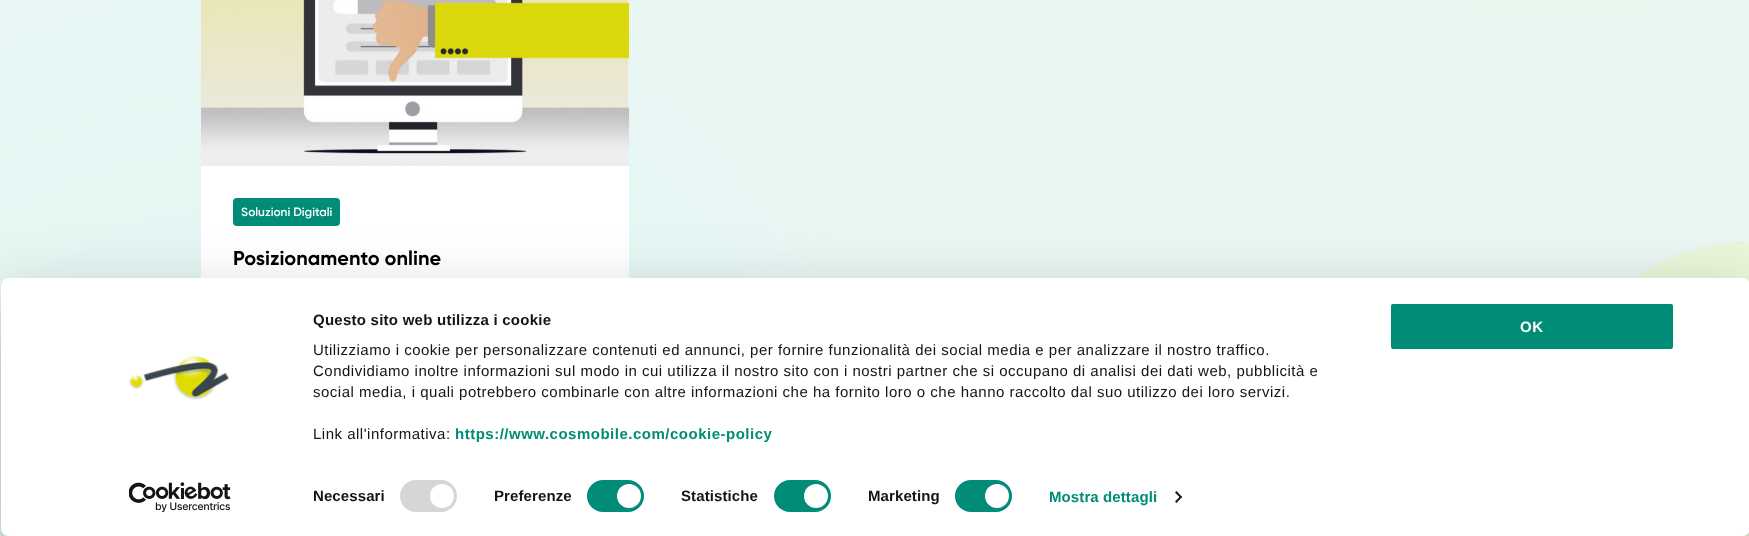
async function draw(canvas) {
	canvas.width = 1749;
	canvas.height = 536;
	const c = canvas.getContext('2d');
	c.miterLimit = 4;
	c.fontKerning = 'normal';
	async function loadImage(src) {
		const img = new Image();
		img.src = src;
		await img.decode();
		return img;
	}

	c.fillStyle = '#e9f6f4';
	c.fillRect(0, 0, 1749, 536);
	c.drawImage(await loadImage('img1.png'), 0, 0, 1749, 536);
	c.fillStyle = '#fff';
	c.fillRect(201, 165, 428, 113);
	c.drawImage(await loadImage('img2.png'), 201, 0, 428, 166);
	c.fillStyle = '#008c77';
	c.beginPath();
	c.roundRect(233, 198, 107, 28, 4);
	c.fill();
	c.font = '600 12px Gilroy';
	c.fillStyle = '#fff';
	c.fillText('Soluzioni Digitali', 241, 216);
	c.font = 'bold 20px Gilroy';
	c.fillStyle = '#000';
	c.fillText('Posizionamento online', 233, 265);
	c.save();
	c.beginPath();
	c.moveTo(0, 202);
	c.lineTo(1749, 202);
	c.lineTo(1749, 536);
	c.lineTo(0, 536);
	c.closePath();
	c.moveTo(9, 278);
	c.lineTo(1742, 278);
	c.bezierCurveTo(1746.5, 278, 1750, 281.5, 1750, 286);
	c.lineTo(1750, 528);
	c.bezierCurveTo(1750, 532.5, 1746.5, 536, 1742, 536);
	c.lineTo(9, 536);
	c.bezierCurveTo(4.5, 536, 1, 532.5, 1, 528);
	c.lineTo(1, 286);
	c.bezierCurveTo(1, 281.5, 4.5, 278, 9, 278);
	c.closePath();
	c.clip('evenodd');
	c.fillStyle = '#0000004d';
	c.filter = 'blur(35px)';
	c.beginPath();
	c.roundRect(1, 308, 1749, 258, 8);
	c.fill();
	c.filter = 'none';
	c.restore();
	c.fillStyle = '#fff';
	c.beginPath();
	c.roundRect(1, 278, 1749, 258, 8);
	c.fill();
	c.letterSpacing = '0.25px';
	c.font = 'bold 15px Liberation Sans';
	c.fillStyle = '#141414';
	c.fillText('Questo sito web utilizza i cookie', 313, 325);
	c.letterSpacing = '0.5px';
	c.font = '15px Liberation Sans';
	for (const [text, x, y] of [
		['Utilizziamo i cookie per personalizzare contenuti ed annunci, per fornire funzionalità dei social media e per analizzare il nostro traffico.', 313, 355],
		['Condividiamo inoltre informazioni sul modo in cui utilizza il nostro sito con i nostri partner che si occupano di analisi dei dati web, pubblicità e', 313, 376],
		['social media, i quali potrebbero combinarle con altre informazioni che ha fornito loro o che hanno raccolto dal suo utilizzo dei loro servizi.', 313, 397],
		['Link all\'informativa:', 313, 439],
	]) {
		c.fillText(text, x, y);
	}
	c.font = 'bold 15px Liberation Sans';
	c.fillStyle = '#008c77';
	c.fillText('https://www.cosmobile.com/cookie-policy', 455, 439);
	c.letterSpacing = '0.1px';
	c.fillStyle = '#141414';
	c.fillText('Necessari', 313, 501);
	c.fillStyle = '#d6d6d6';
	c.beginPath();
	c.roundRect(400, 480, 57, 32, 16);
	c.fill();
	c.fillStyle = '#fff';
	c.beginPath();
	c.arc(442, 496, 12, 0, 2 * Math.PI);
	c.fill();
	c.fillStyle = '#141414';
	c.fillText('Preferenze', 494, 501);
	c.fillStyle = '#008c77';
	c.beginPath();
	c.roundRect(587, 480, 57, 32, 16);
	c.fill();
	c.fillStyle = '#fff';
	c.beginPath();
	c.arc(629, 496, 12, 0, 2 * Math.PI);
	c.fill();
	c.fillStyle = '#141414';
	c.fillText('Statistiche', 681, 501);
	c.fillStyle = '#008c77';
	c.beginPath();
	c.roundRect(774, 480, 57, 32, 16);
	c.fill();
	c.fillStyle = '#fff';
	c.beginPath();
	c.arc(816, 496, 12, 0, 2 * Math.PI);
	c.fill();
	c.fillStyle = '#141414';
	c.fillText('Marketing', 868, 501);
	c.fillStyle = '#008c77';
	c.beginPath();
	c.roundRect(955, 480, 57, 32, 16);
	c.fill();
	c.fillStyle = '#fff';
	c.beginPath();
	c.arc(997, 496, 12, 0, 2 * Math.PI);
	c.fill();
	c.fillStyle = '#008c77';
	c.fillText('Mostra dettagli', 1049, 502);
	c.fillStyle = '#141414';
	c.beginPath();
	c.moveTo(1176.5, 491);
	c.lineTo(1182, 497);
	c.lineTo(1181, 498.5);
	c.lineTo(1175, 492.5);
	c.closePath();
	c.fill();
	c.beginPath();
	c.moveTo(1181, 495.5);
	c.lineTo(1182, 497);
	c.lineTo(1176.5, 503);
	c.lineTo(1175, 501.5);
	c.closePath();
	c.fill();
	c.fillStyle = '#008c77';
	c.beginPath();
	c.roundRect(1390, 303, 284, 47, 3);
	c.fill();
	c.strokeStyle = '#fff';
	c.lineWidth = 2;
	c.stroke();
	c.letterSpacing = '0.5px';
	c.fillStyle = '#fff';
	c.fillText('OK', 1520, 332);
	c.drawImage(await loadImage('img3.png'), 129, 354, 100, 46);
	c.drawImage(await loadImage('img4.png'), 129, 482, 102, 30);
}

draw(document.querySelector('canvas'));
